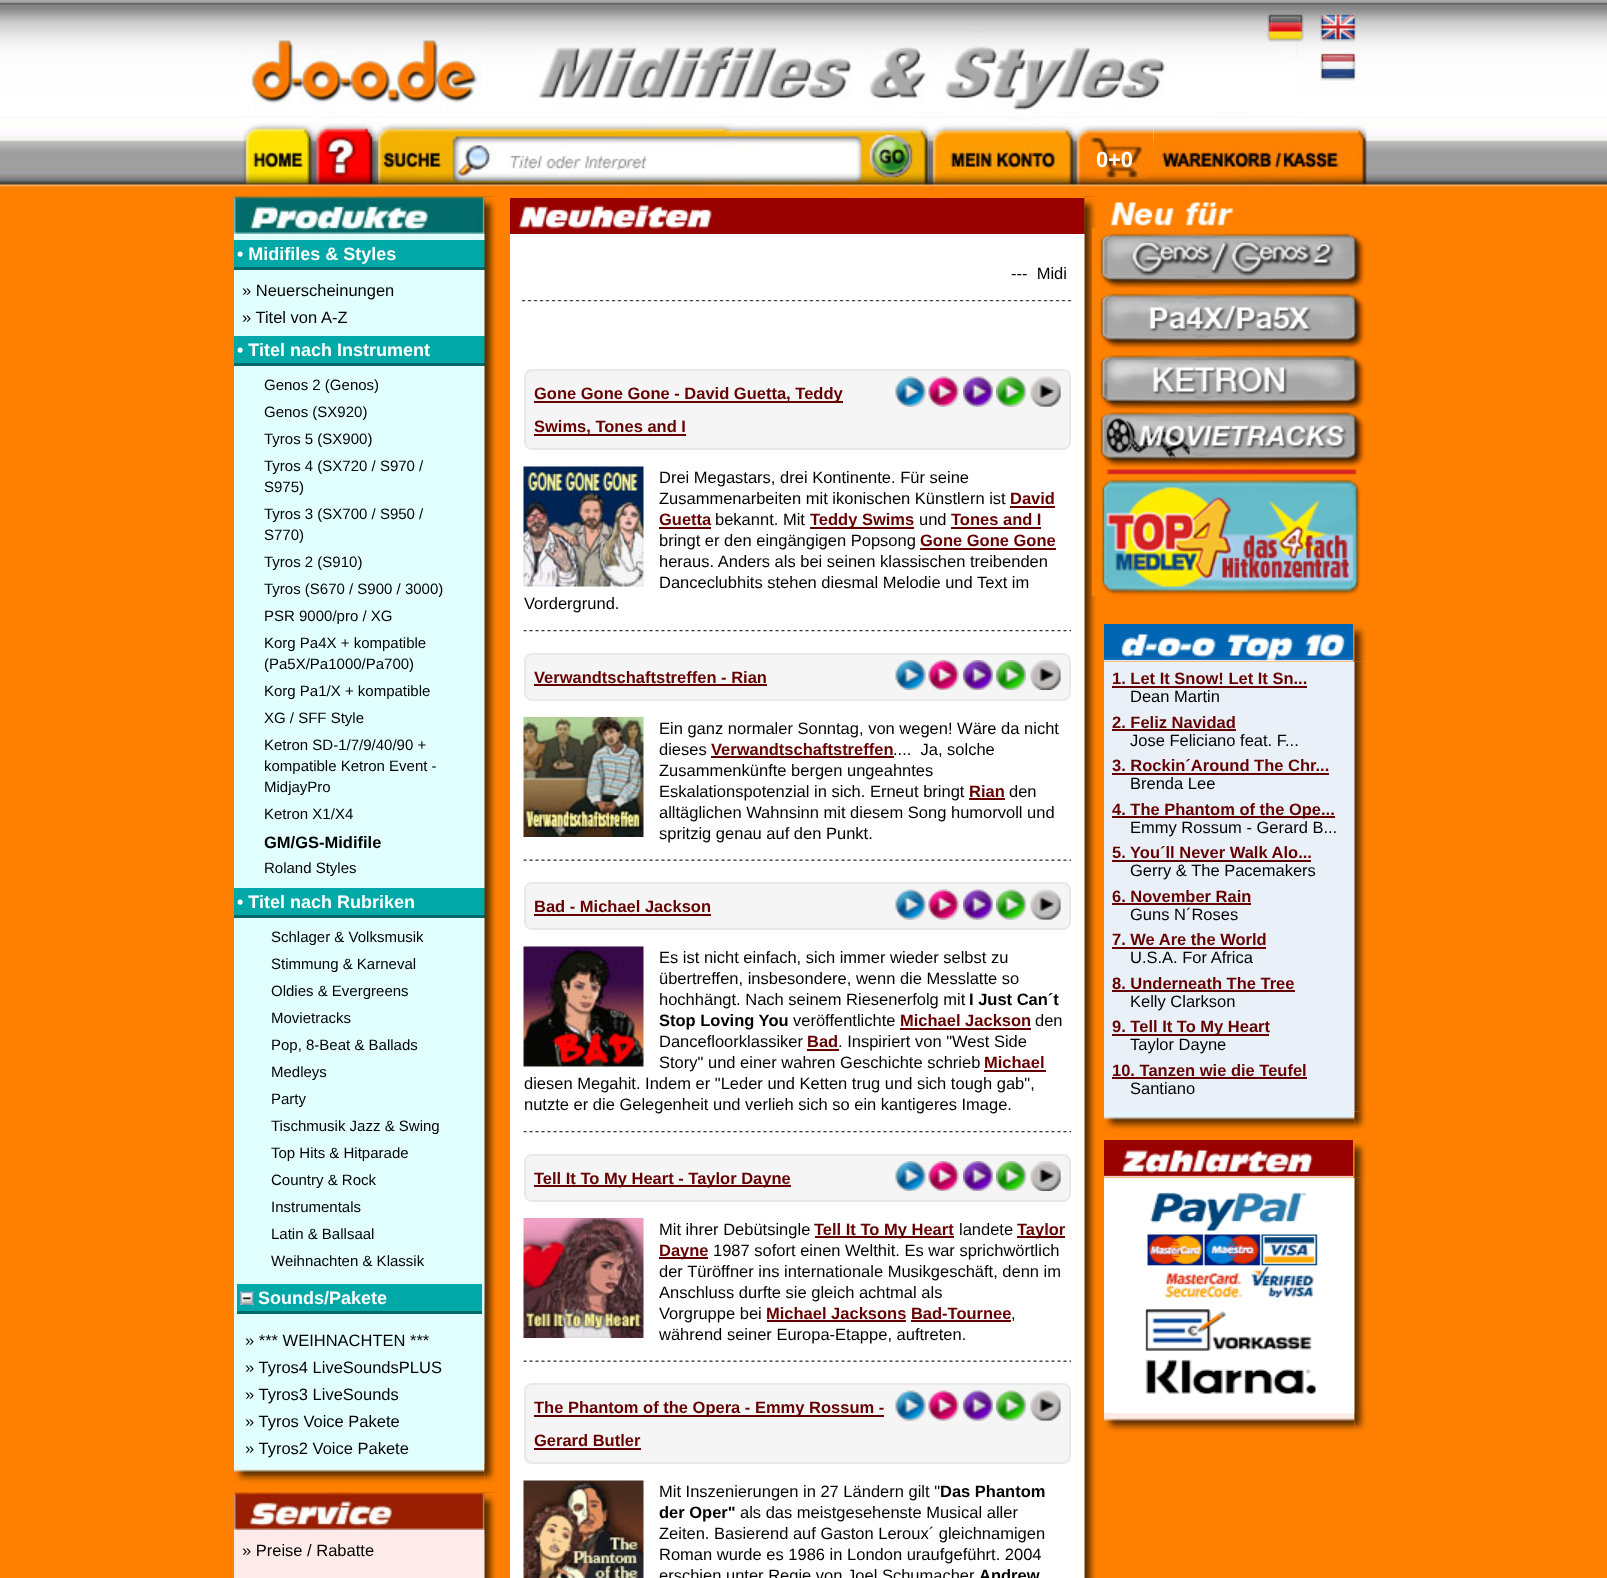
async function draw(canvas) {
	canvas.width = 1607;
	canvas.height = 1578;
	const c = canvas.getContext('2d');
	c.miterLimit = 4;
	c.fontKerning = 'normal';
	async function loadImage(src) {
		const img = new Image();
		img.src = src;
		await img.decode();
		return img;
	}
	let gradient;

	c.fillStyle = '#ff8000';
	c.fillRect(0, 0, 1607, 1578);
	c.drawImage(await loadImage('img1.png'), 0, 0, 1607, 189);
	c.drawImage(await loadImage('img5.png'), 1301, 24, 56, 3);
	c.drawImage(await loadImage('img7.png'), 491, 27, 807, 96);
	c.drawImage(await loadImage('img2.png'), 1267, 13, 37, 29);
	c.drawImage(await loadImage('img3.png'), 1320, 14, 36, 28);
	c.drawImage(await loadImage('img9.png'), 1298, 64, 58, 7);
	c.drawImage(await loadImage('img4.png'), 1320, 53, 36, 28);
	c.drawImage(await loadImage('img6.png'), 242, 39, 249, 84);
	c.drawImage(await loadImage('img8.png'), 1356, 122, 11, 1);
	c.fillStyle = '#fcfdff';
	c.fillRect(1298, 122, 58, 1);
	c.drawImage(await loadImage('img10.png'), 241, 123, 71, 69);
	c.drawImage(await loadImage('img11.png'), 312, 123, 65, 70);
	c.drawImage(await loadImage('img12.png'), 376, 123, 491, 72);
	c.drawImage(await loadImage('img13.png'), 509, 155, 139, 15);
	c.drawImage(await loadImage('img14.png'), 867, 123, 62, 66);
	c.drawImage(await loadImage('img15.png'), 928, 123, 146, 72);
	c.drawImage(await loadImage('img16.png'), 1074, 123, 80, 72);
	c.font = 'bold 22px Liberation Sans';
	c.fillStyle = '#fff';
	c.fillText('0', 1096, 167);
	c.fillText('+0', 1108, 167);
	c.drawImage(await loadImage('img17.png'), 1153, 123, 214, 69);
	c.drawImage(await loadImage('img18.png'), 234, 196, 251, 38);
	c.drawImage(await loadImage('img19.png'), 484, 196, 12, 38);
	c.drawImage(await loadImage('img20.png'), 484, 196, 12, 38);
	for (const [x, y, w, h, color] of [
		[234, 234, 251, 1230, '#e2ffff'],
		[234, 240, 251, 27, '#00a8a8'],
		[234, 267, 251, 3, '#006b6b'],
	]) {
		c.fillStyle = color;
		c.fillRect(x, y, w, h);
	}
	c.font = 'bold 18px Liberation Sans';
	c.fillStyle = '#fff';
	c.fillText('• Midifiles & Styles', 237, 260);
	c.font = '16.5px Liberation Sans';
	c.fillStyle = '#000';
	c.fillText('» Neuerscheinungen', 242, 296);
	c.fillText('» Titel von A-Z', 242, 323);
	c.fillStyle = '#00a8a8';
	c.fillRect(234, 336, 251, 27);
	c.fillStyle = '#006b6b';
	c.fillRect(234, 363, 251, 3);
	c.font = 'bold 18px Liberation Sans';
	c.fillStyle = '#fff';
	c.fillText('• Titel nach Instrument', 237, 356);
	c.font = '15px Liberation Sans';
	c.fillStyle = '#000';
	for (const [text, x, y] of [
		['Genos 2 (Genos)', 264, 390],
		['Genos (SX920)', 264, 417],
		['Tyros 5 (SX900)', 264, 444],
		['Tyros 4 (SX720 / S970 /', 264, 471],
		['S975)', 264, 492],
		['Tyros 3 (SX700 / S950 /', 264, 519],
		['S770)', 264, 540],
		['Tyros 2 (S910)', 264, 567],
		['Tyros (S670 / S900 / 3000)', 264, 594],
		['PSR 9000/pro / XG', 264, 621],
		['Korg Pa4X + kompatible', 264, 648],
		['(Pa5X/Pa1000/Pa700)', 264, 669],
		['Korg Pa1/X + kompatible', 264, 696],
		['XG / SFF Style', 264, 723],
		['Ketron SD-1/7/9/40/90 +', 264, 750],
		['kompatible Ketron Event -', 264, 771],
		['MidjayPro', 264, 792],
		['Ketron X1/X4', 264, 819],
	]) {
		c.fillText(text, x, y);
	}
	c.font = 'bold 16.5px Liberation Sans';
	c.fillText('GM/GS-Midifile', 264, 848);
	c.font = '15px Liberation Sans';
	c.fillText('Roland Styles', 264, 873);
	c.fillStyle = '#00a8a8';
	c.fillRect(234, 888, 251, 27);
	c.fillStyle = '#006b6b';
	c.fillRect(234, 915, 251, 3);
	c.font = 'bold 18px Liberation Sans';
	c.fillStyle = '#fff';
	c.fillText('• Titel nach Rubriken', 237, 908);
	c.font = '15px Liberation Sans';
	c.fillStyle = '#000';
	for (const [text, x, y] of [
		['Schlager & Volksmusik', 271, 942],
		['Stimmung & Karneval', 271, 969],
		['Oldies & Evergreens', 271, 996],
		['Movietracks', 271, 1023],
		['Pop, 8-Beat & Ballads', 271, 1050],
		['Medleys', 271, 1077],
		['Party', 271, 1104],
		['Tischmusik Jazz & Swing', 271, 1131],
		['Top Hits & Hitparade', 271, 1158],
		['Country & Rock', 271, 1185],
		['Instrumentals', 271, 1212],
		['Latin & Ballsaal', 271, 1239],
		['Weihnachten & Klassik', 271, 1266],
	]) {
		c.fillText(text, x, y);
	}
	c.fillStyle = '#00a8a8';
	c.fillRect(237, 1284, 245, 27);
	c.fillStyle = '#006b6b';
	c.fillRect(237, 1311, 245, 3);
	c.drawImage(await loadImage('img21.png'), 240, 1291, 14, 14);
	c.font = 'bold 18px Liberation Sans';
	c.fillStyle = '#fff';
	c.fillText('Sounds/Pakete', 258, 1304);
	c.font = '16.5px Liberation Sans';
	c.fillStyle = '#000';
	for (const [text, x, y] of [
		['» *** WEIHNACHTEN ***', 245, 1346],
		['» Tyros4 LiveSoundsPLUS', 245, 1373],
		['» Tyros3 LiveSounds', 245, 1400],
		['» Tyros Voice Pakete', 245, 1427],
		['» Tyros2 Voice Pakete', 245, 1454],
	]) {
		c.fillText(text, x, y);
	}
	c.drawImage(await loadImage('img22.png'), 484, 234, 12, 1230);
	c.drawImage(await loadImage('img23.png'), 234, 1464, 251, 24);
	c.drawImage(await loadImage('img24.png'), 484, 1464, 13, 24);
	c.drawImage(await loadImage('img25.png'), 234, 1492, 251, 38);
	c.drawImage(await loadImage('img26.png'), 484, 1492, 12, 38);
	c.drawImage(await loadImage('img27.png'), 484, 1492, 12, 38);
	c.fillStyle = '#fdebe9';
	c.fillRect(234, 1530, 251, 48);
	c.drawImage(await loadImage('img28.png'), 484, 1530, 12, 6);
	c.fillStyle = '#000';
	c.fillText('» Preise / Rabatte', 242, 1556);
	c.drawImage(await loadImage('img29.png'), 484, 1536, 12, 42);
	c.drawImage(await loadImage('img30.png'), 510, 198, 575, 36);
	c.drawImage(await loadImage('img31.png'), 1084, 196, 12, 38);
	c.drawImage(await loadImage('img32.png'), 1084, 196, 12, 38);
	c.fillStyle = '#fff';
	c.fillRect(510, 234, 575, 1344);
	c.fillStyle = '#000';
	c.fillText('---  Midi', 1011, 279);
	c.drawImage(await loadImage('img33.png'), 522, 300, 550, 2);
	c.fillStyle = '#f5f5f5';
	c.beginPath();
	c.roundRect(525, 370, 545, 79, 7);
	c.fill();
	c.strokeStyle = '#e9e9e9';
	c.lineWidth = 2;
	c.stroke();
	c.fillStyle = '#600';
	c.fillRect(534, 401, 309, 2);
	c.font = 'bold 16.5px Liberation Sans';
	c.fillText('Gone Gone Gone - David Guetta, Teddy', 534, 399);
	gradient = c.createLinearGradient(911, 377, 911, 407);
	gradient.addColorStop(0, '#e5e5e5');
	gradient.addColorStop(1, '#c9c9c9');
	c.fillStyle = gradient;
	c.beginPath();
	c.arc(911, 392, 15, 0, 2 * Math.PI);
	c.fill();
	c.drawImage(await loadImage('img34.png'), 895, 376, 31, 31);
	gradient = c.createLinearGradient(944, 377, 944, 407);
	gradient.addColorStop(0, '#e5e5e5');
	gradient.addColorStop(1, '#c9c9c9');
	c.fillStyle = gradient;
	c.beginPath();
	c.arc(944, 392, 15, 0, 2 * Math.PI);
	c.fill();
	c.drawImage(await loadImage('img35.png'), 928, 376, 31, 31);
	gradient = c.createLinearGradient(978, 377, 978, 407);
	gradient.addColorStop(0, '#e5e5e5');
	gradient.addColorStop(1, '#c9c9c9');
	c.fillStyle = gradient;
	c.beginPath();
	c.arc(978, 392, 15, 0, 2 * Math.PI);
	c.fill();
	c.drawImage(await loadImage('img36.png'), 963, 376, 30, 31);
	gradient = c.createLinearGradient(1011, 377, 1011, 407);
	gradient.addColorStop(0, '#e5e5e5');
	gradient.addColorStop(1, '#c9c9c9');
	c.fillStyle = gradient;
	c.beginPath();
	c.arc(1011, 392, 15, 0, 2 * Math.PI);
	c.fill();
	c.drawImage(await loadImage('img37.png'), 996, 376, 30, 31);
	gradient = c.createLinearGradient(1046, 377, 1046, 407);
	gradient.addColorStop(0, '#e5e5e5');
	gradient.addColorStop(1, '#c9c9c9');
	c.fillStyle = gradient;
	c.beginPath();
	c.arc(1046, 392, 15, 0, 2 * Math.PI);
	c.fill();
	c.drawImage(await loadImage('img38.png'), 1030, 376, 31, 31);
	c.fillStyle = '#600';
	c.fillRect(534, 434, 152, 2);
	c.fillText('Swims, Tones and I', 534, 432);
	c.drawImage(await loadImage('img39.png'), 523, 466, 121, 121);
	c.font = '16.5px Liberation Sans';
	c.fillStyle = '#000';
	c.fillText('Drei Megastars, drei Kontinente. Für seine', 659, 483);
	c.fillText('Zusammenarbeiten mit ikonischen Künstlern ist', 659, 504);
	c.font = 'bold 16.5px Liberation Sans';
	c.fillStyle = '#600';
	c.fillText('David', 1010, 504);
	c.fillRect(1010, 506, 45, 2);
	c.fillText('Guetta', 659, 525);
	c.fillRect(659, 527, 52, 2);
	c.font = '16.5px Liberation Sans';
	c.fillStyle = '#000';
	c.fillText('bekannt. Mit', 715, 525);
	c.fillStyle = '#600';
	c.fillRect(810, 527, 104, 2);
	c.font = 'bold 16.5px Liberation Sans';
	c.fillText('Teddy Swims', 810, 525);
	c.font = '16.5px Liberation Sans';
	c.fillStyle = '#000';
	c.fillText('und', 919, 525);
	c.font = 'bold 16.5px Liberation Sans';
	c.fillStyle = '#600';
	c.fillText('Tones and I', 951, 525);
	c.fillRect(951, 527, 90, 2);
	c.font = '16.5px Liberation Sans';
	c.fillStyle = '#000';
	c.fillText('bringt er den eingängigen Popsong', 659, 546);
	c.font = 'bold 16.5px Liberation Sans';
	c.fillStyle = '#600';
	c.fillText('Gone Gone Gone', 920, 546);
	c.fillRect(920, 548, 136, 2);
	c.font = '16.5px Liberation Sans';
	c.fillStyle = '#000';
	for (const [text, x, y] of [
		['heraus. Anders als bei seinen klassischen treibenden', 659, 567],
		['Danceclubhits stehen diesmal Melodie und Text im', 659, 588],
		['Vordergrund.', 524, 609],
	]) {
		c.fillText(text, x, y);
	}
	c.drawImage(await loadImage('img40.png'), 523, 630, 548, 2);
	c.fillStyle = '#f5f5f5';
	c.beginPath();
	c.roundRect(525, 654, 545, 46, 7);
	c.fill();
	c.stroke();
	c.font = 'bold 16.5px Liberation Sans';
	c.fillStyle = '#600';
	c.fillText('Verwandtschaftstreffen - Rian', 534, 683);
	c.fillRect(534, 684, 233, 2);
	gradient = c.createLinearGradient(911, 660, 911, 690);
	gradient.addColorStop(0, '#e5e5e5');
	gradient.addColorStop(1, '#c9c9c9');
	c.fillStyle = gradient;
	c.beginPath();
	c.arc(911, 675, 15, 0, 2 * Math.PI);
	c.fill();
	c.drawImage(await loadImage('img41.png'), 895, 660, 31, 30);
	gradient = c.createLinearGradient(944, 660, 944, 690);
	gradient.addColorStop(0, '#e5e5e5');
	gradient.addColorStop(1, '#c9c9c9');
	c.fillStyle = gradient;
	c.beginPath();
	c.arc(944, 675, 15, 0, 2 * Math.PI);
	c.fill();
	c.drawImage(await loadImage('img42.png'), 928, 660, 31, 30);
	gradient = c.createLinearGradient(978, 660, 978, 690);
	gradient.addColorStop(0, '#e5e5e5');
	gradient.addColorStop(1, '#c9c9c9');
	c.fillStyle = gradient;
	c.beginPath();
	c.arc(978, 675, 15, 0, 2 * Math.PI);
	c.fill();
	c.drawImage(await loadImage('img43.png'), 963, 660, 30, 30);
	gradient = c.createLinearGradient(1011, 660, 1011, 690);
	gradient.addColorStop(0, '#e5e5e5');
	gradient.addColorStop(1, '#c9c9c9');
	c.fillStyle = gradient;
	c.beginPath();
	c.arc(1011, 675, 15, 0, 2 * Math.PI);
	c.fill();
	c.drawImage(await loadImage('img44.png'), 996, 660, 30, 30);
	gradient = c.createLinearGradient(1046, 660, 1046, 690);
	gradient.addColorStop(0, '#e5e5e5');
	gradient.addColorStop(1, '#c9c9c9');
	c.fillStyle = gradient;
	c.beginPath();
	c.arc(1046, 675, 15, 0, 2 * Math.PI);
	c.fill();
	c.drawImage(await loadImage('img45.png'), 1030, 660, 31, 30);
	c.drawImage(await loadImage('img46.png'), 523, 717, 121, 120);
	c.font = '16.5px Liberation Sans';
	c.fillStyle = '#000';
	c.fillText('Ein ganz normaler Sonntag, von wegen! Wäre da nicht', 659, 734);
	c.fillText('dieses', 659, 755);
	c.font = 'bold 16.5px Liberation Sans';
	c.fillStyle = '#600';
	c.fillText('Verwandtschaftstreffen', 711, 755);
	c.fillRect(711, 756, 183, 2);
	c.font = '16.5px Liberation Sans';
	c.fillStyle = '#000';
	for (const [text, x, y] of [
		['....  Ja, solche', 893, 755],
		['Zusammenkünfte bergen ungeahntes', 659, 776],
		['Eskalationspotenzial in sich. Erneut bringt', 659, 797],
	]) {
		c.fillText(text, x, y);
	}
	c.font = 'bold 16.5px Liberation Sans';
	c.fillStyle = '#600';
	c.fillText('Rian', 969, 797);
	c.fillRect(969, 798, 36, 2);
	c.font = '16.5px Liberation Sans';
	c.fillStyle = '#000';
	for (const [text, x, y] of [
		['den', 1009, 797],
		['alltäglichen Wahnsinn mit diesem Song humorvoll und', 659, 818],
		['spritzig genau auf den Punkt.', 659, 839],
	]) {
		c.fillText(text, x, y);
	}
	c.drawImage(await loadImage('img47.png'), 523, 859, 548, 2);
	c.fillStyle = '#f5f5f5';
	c.beginPath();
	c.roundRect(525, 883, 545, 46, 7);
	c.fill();
	c.stroke();
	c.font = 'bold 16.5px Liberation Sans';
	c.fillStyle = '#600';
	c.fillText('Bad - Michael Jackson', 534, 912);
	c.fillRect(534, 914, 177, 2);
	gradient = c.createLinearGradient(911, 890, 911, 920);
	gradient.addColorStop(0, '#e5e5e5');
	gradient.addColorStop(1, '#c9c9c9');
	c.fillStyle = gradient;
	c.beginPath();
	c.arc(911, 905, 15, 0, 2 * Math.PI);
	c.fill();
	c.drawImage(await loadImage('img34.png'), 895, 889, 31, 31);
	gradient = c.createLinearGradient(944, 890, 944, 920);
	gradient.addColorStop(0, '#e5e5e5');
	gradient.addColorStop(1, '#c9c9c9');
	c.fillStyle = gradient;
	c.beginPath();
	c.arc(944, 905, 15, 0, 2 * Math.PI);
	c.fill();
	c.drawImage(await loadImage('img35.png'), 928, 889, 31, 31);
	gradient = c.createLinearGradient(978, 890, 978, 920);
	gradient.addColorStop(0, '#e5e5e5');
	gradient.addColorStop(1, '#c9c9c9');
	c.fillStyle = gradient;
	c.beginPath();
	c.arc(978, 905, 15, 0, 2 * Math.PI);
	c.fill();
	c.drawImage(await loadImage('img36.png'), 963, 889, 30, 31);
	gradient = c.createLinearGradient(1011, 890, 1011, 920);
	gradient.addColorStop(0, '#e5e5e5');
	gradient.addColorStop(1, '#c9c9c9');
	c.fillStyle = gradient;
	c.beginPath();
	c.arc(1011, 905, 15, 0, 2 * Math.PI);
	c.fill();
	c.drawImage(await loadImage('img37.png'), 996, 889, 30, 31);
	gradient = c.createLinearGradient(1046, 890, 1046, 920);
	gradient.addColorStop(0, '#e5e5e5');
	gradient.addColorStop(1, '#c9c9c9');
	c.fillStyle = gradient;
	c.beginPath();
	c.arc(1046, 905, 15, 0, 2 * Math.PI);
	c.fill();
	c.drawImage(await loadImage('img38.png'), 1030, 889, 31, 31);
	c.drawImage(await loadImage('img48.png'), 523, 946, 121, 121);
	c.font = '16.5px Liberation Sans';
	c.fillStyle = '#000';
	for (const [text, x, y] of [
		['Es ist nicht einfach, sich immer wieder selbst zu', 659, 963],
		['übertreffen, insbesondere, wenn die Messlatte so', 659, 984],
		['hochhängt. Nach seinem Riesenerfolg mit', 659, 1005],
	]) {
		c.fillText(text, x, y);
	}
	c.font = 'bold 16.5px Liberation Sans';
	c.fillText('I Just Can´t', 969, 1005);
	c.fillText('Stop Loving You', 659, 1026);
	c.font = '16.5px Liberation Sans';
	c.fillText('veröffentlichte', 793, 1026);
	c.font = 'bold 16.5px Liberation Sans';
	c.fillStyle = '#600';
	c.fillText('Michael Jackson', 900, 1026);
	c.fillRect(900, 1028, 131, 2);
	c.font = '16.5px Liberation Sans';
	c.fillStyle = '#000';
	c.fillText('den', 1035, 1026);
	c.fillText('Dancefloorklassiker', 659, 1047);
	c.font = 'bold 16.5px Liberation Sans';
	c.fillStyle = '#600';
	c.fillText('Bad', 807, 1047);
	c.font = '16.5px Liberation Sans';
	c.fillStyle = '#000';
	c.fillText('. Inspiriert von "West Side', 838, 1047);
	c.fillStyle = '#600';
	c.fillRect(807, 1049, 32, 2);
	c.fillStyle = '#000';
	c.fillText('Story" und einer wahren Geschichte schrieb', 659, 1068);
	c.font = 'bold 16.5px Liberation Sans';
	c.fillStyle = '#600';
	c.fillText('Michael', 984, 1068);
	c.fillRect(984, 1070, 62, 2);
	c.font = '16.5px Liberation Sans';
	c.fillStyle = '#000';
	c.fillText('diesen Megahit. Indem er "Leder und Ketten trug und sich tough gab",', 524, 1089);
	c.fillText('nutzte er die Gelegenheit und verlieh sich so ein kantigeres Image.', 524, 1110);
	c.drawImage(await loadImage('img40.png'), 523, 1131, 548, 2);
	c.fillStyle = '#f5f5f5';
	c.beginPath();
	c.roundRect(525, 1155, 545, 46, 7);
	c.fill();
	c.stroke();
	c.fillStyle = '#600';
	c.fillRect(534, 1185, 257, 2);
	c.font = 'bold 16.5px Liberation Sans';
	c.fillText('Tell It To My Heart - Taylor Dayne', 534, 1184);
	gradient = c.createLinearGradient(911, 1161, 911, 1191);
	gradient.addColorStop(0, '#e5e5e5');
	gradient.addColorStop(1, '#c9c9c9');
	c.fillStyle = gradient;
	c.beginPath();
	c.arc(911, 1176, 15, 0, 2 * Math.PI);
	c.fill();
	c.drawImage(await loadImage('img41.png'), 895, 1161, 31, 30);
	gradient = c.createLinearGradient(944, 1161, 944, 1191);
	gradient.addColorStop(0, '#e5e5e5');
	gradient.addColorStop(1, '#c9c9c9');
	c.fillStyle = gradient;
	c.beginPath();
	c.arc(944, 1176, 15, 0, 2 * Math.PI);
	c.fill();
	c.drawImage(await loadImage('img42.png'), 928, 1161, 31, 30);
	gradient = c.createLinearGradient(978, 1161, 978, 1191);
	gradient.addColorStop(0, '#e5e5e5');
	gradient.addColorStop(1, '#c9c9c9');
	c.fillStyle = gradient;
	c.beginPath();
	c.arc(978, 1176, 15, 0, 2 * Math.PI);
	c.fill();
	c.drawImage(await loadImage('img43.png'), 963, 1161, 30, 30);
	gradient = c.createLinearGradient(1011, 1161, 1011, 1191);
	gradient.addColorStop(0, '#e5e5e5');
	gradient.addColorStop(1, '#c9c9c9');
	c.fillStyle = gradient;
	c.beginPath();
	c.arc(1011, 1176, 15, 0, 2 * Math.PI);
	c.fill();
	c.drawImage(await loadImage('img44.png'), 996, 1161, 30, 30);
	gradient = c.createLinearGradient(1046, 1161, 1046, 1191);
	gradient.addColorStop(0, '#e5e5e5');
	gradient.addColorStop(1, '#c9c9c9');
	c.fillStyle = gradient;
	c.beginPath();
	c.arc(1046, 1176, 15, 0, 2 * Math.PI);
	c.fill();
	c.drawImage(await loadImage('img45.png'), 1030, 1161, 31, 30);
	c.drawImage(await loadImage('img49.png'), 523, 1218, 121, 120);
	c.font = '16.5px Liberation Sans';
	c.fillStyle = '#000';
	c.fillText('Mit ihrer Debütsingle', 659, 1235);
	c.fillStyle = '#600';
	c.fillRect(815, 1236, 139, 2);
	c.font = 'bold 16.5px Liberation Sans';
	c.fillText('Tell It To My Heart', 814, 1235);
	c.font = '16.5px Liberation Sans';
	c.fillStyle = '#000';
	c.fillText('landete', 959, 1235);
	c.fillStyle = '#600';
	c.fillRect(1017, 1236, 48, 2);
	c.font = 'bold 16.5px Liberation Sans';
	c.fillText('Taylor', 1017, 1235);
	c.fillRect(659, 1257, 49, 2);
	c.fillText('Dayne', 659, 1256);
	c.font = '16.5px Liberation Sans';
	c.fillStyle = '#000';
	for (const [text, x, y] of [
		['1987 sofort einen Welthit. Es war sprichwörtlich', 713, 1256],
		['der Türöffner ins internationale Musikgeschäft, denn im', 659, 1277],
		['Anschluss durfte sie gleich achtmal als', 659, 1298],
		['Vorgruppe bei', 659, 1319],
	]) {
		c.fillText(text, x, y);
	}
	c.font = 'bold 16.5px Liberation Sans';
	c.fillStyle = '#600';
	c.fillText('Michael Jacksons Bad-Tournee', 766, 1319);
	c.fillRect(767, 1320, 139, 2);
	c.font = '16.5px Liberation Sans';
	c.fillStyle = '#000';
	c.fillText(',', 1011, 1319);
	c.fillStyle = '#600';
	c.fillRect(911, 1320, 100, 2);
	c.fillStyle = '#000';
	c.fillText('während seiner Europa-Etappe, auftreten.', 659, 1340);
	c.drawImage(await loadImage('img50.png'), 523, 1360, 548, 2);
	c.fillStyle = '#f5f5f5';
	c.beginPath();
	c.roundRect(525, 1384, 545, 79, 7);
	c.fill();
	c.stroke();
	c.fillStyle = '#600';
	c.fillRect(534, 1415, 350, 2);
	c.font = 'bold 16.5px Liberation Sans';
	c.fillText('The Phantom of the Opera - Emmy Rossum -', 534, 1413);
	gradient = c.createLinearGradient(911, 1391, 911, 1421);
	gradient.addColorStop(0, '#e5e5e5');
	gradient.addColorStop(1, '#c9c9c9');
	c.fillStyle = gradient;
	c.beginPath();
	c.arc(911, 1406, 15, 0, 2 * Math.PI);
	c.fill();
	c.drawImage(await loadImage('img34.png'), 895, 1390, 31, 31);
	gradient = c.createLinearGradient(944, 1391, 944, 1421);
	gradient.addColorStop(0, '#e5e5e5');
	gradient.addColorStop(1, '#c9c9c9');
	c.fillStyle = gradient;
	c.beginPath();
	c.arc(944, 1406, 15, 0, 2 * Math.PI);
	c.fill();
	c.drawImage(await loadImage('img35.png'), 928, 1390, 31, 31);
	gradient = c.createLinearGradient(978, 1391, 978, 1421);
	gradient.addColorStop(0, '#e5e5e5');
	gradient.addColorStop(1, '#c9c9c9');
	c.fillStyle = gradient;
	c.beginPath();
	c.arc(978, 1406, 15, 0, 2 * Math.PI);
	c.fill();
	c.drawImage(await loadImage('img36.png'), 963, 1390, 30, 31);
	gradient = c.createLinearGradient(1011, 1391, 1011, 1421);
	gradient.addColorStop(0, '#e5e5e5');
	gradient.addColorStop(1, '#c9c9c9');
	c.fillStyle = gradient;
	c.beginPath();
	c.arc(1011, 1406, 15, 0, 2 * Math.PI);
	c.fill();
	c.drawImage(await loadImage('img37.png'), 996, 1390, 30, 31);
	gradient = c.createLinearGradient(1046, 1391, 1046, 1421);
	gradient.addColorStop(0, '#e5e5e5');
	gradient.addColorStop(1, '#c9c9c9');
	c.fillStyle = gradient;
	c.beginPath();
	c.arc(1046, 1406, 15, 0, 2 * Math.PI);
	c.fill();
	c.drawImage(await loadImage('img38.png'), 1030, 1390, 31, 31);
	c.fillStyle = '#600';
	c.fillText('Gerard Butler', 534, 1446);
	c.fillRect(534, 1448, 107, 2);
	c.drawImage(await loadImage('img51.png'), 523, 1480, 121, 98);
	c.font = '16.5px Liberation Sans';
	c.fillStyle = '#000';
	c.fillText('Mit Inszenierungen in 27 Ländern gilt "', 659, 1497);
	c.font = 'bold 16.5px Liberation Sans';
	c.fillText('Das Phantom', 940, 1497);
	c.fillText('der Oper"', 659, 1518);
	c.font = '16.5px Liberation Sans';
	for (const [text, x, y] of [
		['als das meistgesehenste Musical aller', 740, 1518],
		['Zeiten. Basierend auf Gaston Leroux´ gleichnamigen', 659, 1539],
		['Roman wurde es 1986 in London uraufgeführt. 2004', 659, 1560],
		['erschien unter Regie von Joel Schumacher', 659, 1581],
	]) {
		c.fillText(text, x, y);
	}
	c.font = 'bold 16.5px Liberation Sans';
	c.fillText('Andrew', 979, 1581);
	c.drawImage(await loadImage('img52.png'), 1084, 234, 12, 1344);
	c.drawImage(await loadImage('img53.png'), 1110, 202, 124, 24);
	c.drawImage(await loadImage('img54.png'), 1092, 228, 273, 60);
	c.drawImage(await loadImage('img55.png'), 1092, 288, 273, 60);
	c.drawImage(await loadImage('img56.png'), 1092, 348, 273, 60);
	c.drawImage(await loadImage('img57.png'), 1092, 408, 273, 60);
	c.drawImage(await loadImage('img58.png'), 1092, 468, 269, 128);
	c.drawImage(await loadImage('img59.png'), 1104, 624, 249, 38);
	c.drawImage(await loadImage('img60.png'), 1354, 624, 12, 38);
	c.fillStyle = '#e9f0f8';
	c.fillRect(1104, 662, 251, 450);
	c.fillStyle = '#600';
	c.fillText('1. Let It Snow! Let It Sn...', 1112, 684);
	c.fillRect(1112, 686, 195, 2);
	c.font = '16.5px Liberation Sans';
	c.fillStyle = '#000';
	c.fillText('Dean Martin', 1130, 702);
	c.font = 'bold 16.5px Liberation Sans';
	c.fillStyle = '#600';
	c.fillText('2. Feliz Navidad', 1112, 728);
	c.fillRect(1112, 729, 124, 2);
	c.font = '16.5px Liberation Sans';
	c.fillStyle = '#000';
	c.fillText('Jose Feliciano feat. F...', 1130, 746);
	c.font = 'bold 16.5px Liberation Sans';
	c.fillStyle = '#600';
	c.fillText('3. Rockin´Around The Chr...', 1112, 771);
	c.fillRect(1112, 773, 217, 2);
	c.font = '16.5px Liberation Sans';
	c.fillStyle = '#000';
	c.fillText('Brenda Lee', 1130, 789);
	c.fillStyle = '#600';
	c.fillRect(1112, 816, 223, 2);
	c.font = 'bold 16.5px Liberation Sans';
	c.fillText('4. The Phantom of the Ope...', 1112, 815);
	c.font = '16.5px Liberation Sans';
	c.fillStyle = '#000';
	c.fillText('Emmy Rossum - Gerard B...', 1130, 833);
	c.font = 'bold 16.5px Liberation Sans';
	c.fillStyle = '#600';
	c.fillText('5. You´ll Never Walk Alo...', 1112, 858);
	c.fillRect(1112, 860, 199, 2);
	c.font = '16.5px Liberation Sans';
	c.fillStyle = '#000';
	c.fillText('Gerry & The Pacemakers', 1130, 876);
	c.font = 'bold 16.5px Liberation Sans';
	c.fillStyle = '#600';
	c.fillText('6. November Rain', 1112, 902);
	c.fillRect(1112, 903, 139, 2);
	c.font = '16.5px Liberation Sans';
	c.fillStyle = '#000';
	c.fillText('Guns N´Roses', 1130, 920);
	c.font = 'bold 16.5px Liberation Sans';
	c.fillStyle = '#600';
	c.fillText('7. We Are the World', 1112, 945);
	c.fillRect(1112, 947, 154, 2);
	c.font = '16.5px Liberation Sans';
	c.fillStyle = '#000';
	c.fillText('U.S.A. For Africa', 1130, 963);
	c.font = 'bold 16.5px Liberation Sans';
	c.fillStyle = '#600';
	c.fillText('8. Underneath The Tree', 1112, 989);
	c.fillRect(1112, 990, 183, 2);
	c.font = '16.5px Liberation Sans';
	c.fillStyle = '#000';
	c.fillText('Kelly Clarkson', 1130, 1007);
	c.fillStyle = '#600';
	c.fillRect(1112, 1034, 157, 2);
	c.font = 'bold 16.5px Liberation Sans';
	c.fillText('9. Tell It To My Heart', 1112, 1032);
	c.font = '16.5px Liberation Sans';
	c.fillStyle = '#000';
	c.fillText('Taylor Dayne', 1130, 1050);
	c.font = 'bold 16.5px Liberation Sans';
	c.fillStyle = '#600';
	c.fillText('10. Tanzen wie die Teufel', 1112, 1076);
	c.fillRect(1112, 1077, 195, 2);
	c.font = '16.5px Liberation Sans';
	c.fillStyle = '#000';
	c.fillText('Santiano', 1130, 1094);
	c.drawImage(await loadImage('img61.png'), 1354, 661, 12, 451);
	c.drawImage(await loadImage('img62.png'), 1104, 1111, 251, 24);
	c.drawImage(await loadImage('img63.png'), 1354, 1111, 13, 24);
	c.drawImage(await loadImage('img64.png'), 1104, 1140, 249, 38);
	c.drawImage(await loadImage('img60.png'), 1354, 1140, 12, 38);
	c.fillStyle = '#fff';
	c.fillRect(1104, 1178, 251, 235);
	c.drawImage(await loadImage('img65.png'), 1145, 1192, 173, 202);
	c.drawImage(await loadImage('img66.png'), 1354, 1177, 12, 236);
	c.drawImage(await loadImage('img67.png'), 1104, 1413, 251, 24);
	c.drawImage(await loadImage('img68.png'), 1354, 1413, 13, 24);
}

draw(document.querySelector('canvas'));
